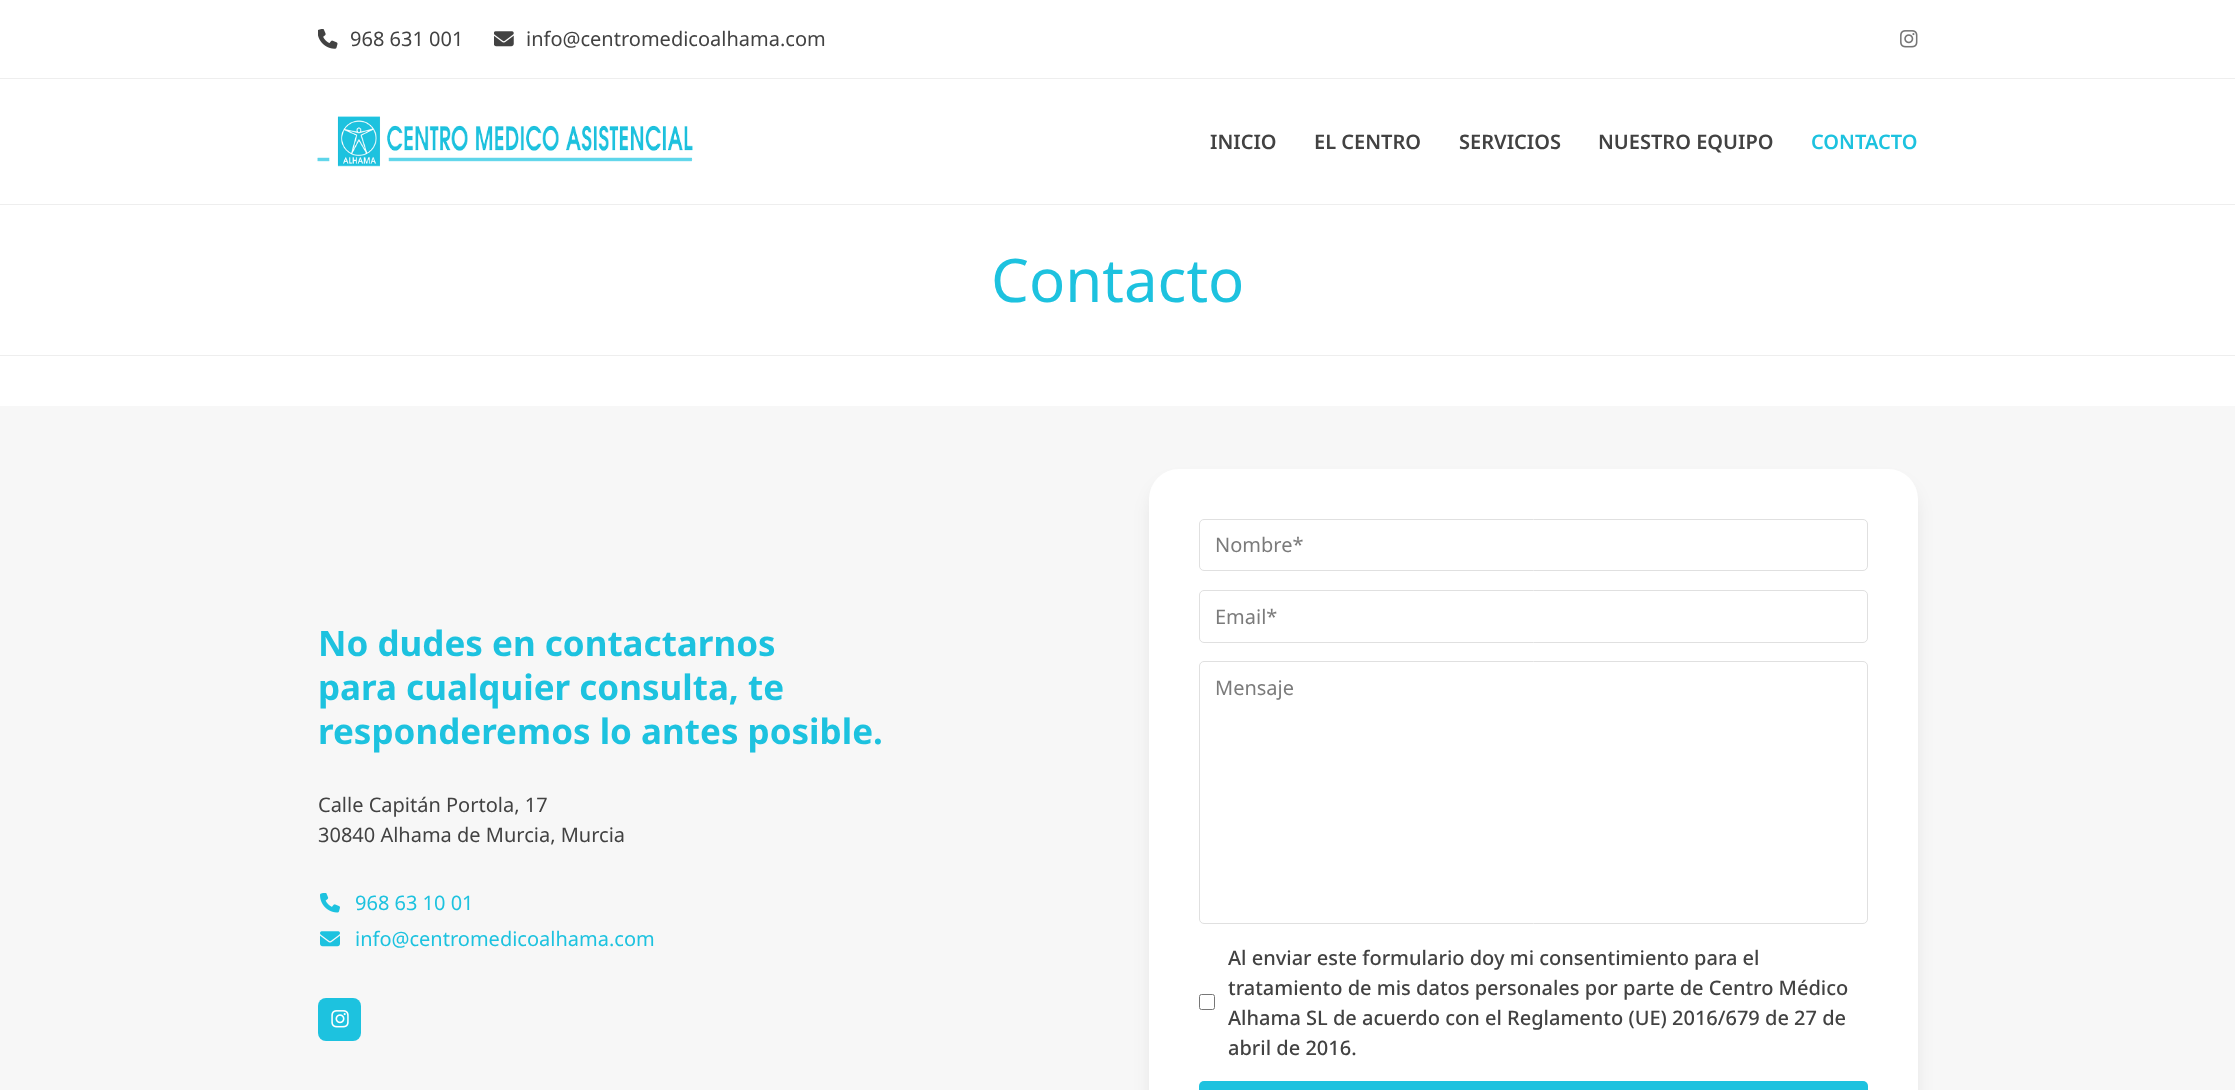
async function draw(canvas) {
	canvas.width = 2235;
	canvas.height = 1090;
	const c = canvas.getContext('2d');
	c.miterLimit = 4;
	c.fontKerning = 'normal';
	async function loadImage(src) {
		const img = new Image();
		img.src = src;
		await img.decode();
		return img;
	}

	c.fillStyle = '#fff';
	c.fillRect(0, 0, 2235, 1090);
	c.fillStyle = '#eee';
	c.fillRect(0, 78, 2235, 1);
	c.drawImage(await loadImage('img1.png'), 318, 29, 20, 20);
	c.font = '20px Noto Sans';
	c.fillStyle = '#424242';
	c.fillText('968 631 001', 350, 46);
	c.drawImage(await loadImage('img2.png'), 494, 31, 20, 16);
	c.fillText('info@centromedicoalhama.com', 526, 46);
	c.drawImage(await loadImage('img3.png'), 1900, 30, 18, 18);
	c.drawImage(await loadImage('img4.png'), 317, 116, 376, 51);
	c.font = '600 20px Noto Sans';
	for (const [text, x, y] of [
		['INICIO', 1210, 149],
		['EL CENTRO', 1314, 149],
		['SERVICIOS', 1459, 149],
		['NUESTRO EQUIPO', 1598, 149],
	]) {
		c.fillText(text, x, y);
	}
	c.fillStyle = '#1dc2df';
	c.fillText('CONTACTO', 1811, 149);
	c.fillStyle = '#eee';
	c.fillRect(0, 204, 2235, 1);
	c.fillRect(0, 355, 2235, 1);
	c.font = '60px Noto Sans';
	c.fillStyle = '#1dc2df';
	c.fillText('Contacto', 991, 302);
	c.fillStyle = '#f7f7f7';
	c.fillRect(0, 406, 2235, 684);
	c.font = 'bold 35px Noto Sans';
	c.fillStyle = '#1dc2df';
	for (const [text, x, y] of [
		['No dudes en contactarnos', 318, 656],
		['para cualquier consulta, te', 318, 700],
		['responderemos lo antes posible.', 318, 744],
	]) {
		c.fillText(text, x, y);
	}
	c.font = '20px Noto Sans';
	c.fillStyle = '#424242';
	c.fillText('Calle Capitán Portola, 17', 318, 812);
	c.fillText('30840 Alhama de Murcia, Murcia', 318, 842);
	c.drawImage(await loadImage('img5.png'), 320, 893, 20, 20);
	c.fillStyle = '#1dc2df';
	c.fillText('968 63 10 01', 355, 910);
	c.drawImage(await loadImage('img6.png'), 320, 931, 20, 16);
	c.fillText('info@centromedicoalhama.com', 355, 946);
	c.beginPath();
	c.roundRect(318, 998, 43, 43, 8);
	c.fill();
	c.drawImage(await loadImage('img7.png'), 331, 1010, 18, 18);
	c.fillStyle = '#0000001a';
	c.filter = 'blur(9.5px)';
	c.beginPath();
	c.roundRect(1153, 485, 761, 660, 26);
	c.fill();
	c.filter = 'none';
	c.fillStyle = '#fff';
	c.beginPath();
	c.roundRect(1149, 469, 769, 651, 30);
	c.fill();
	c.beginPath();
	c.roundRect(1199.5, 519.5, 668, 51, 4.5);
	c.strokeStyle = '#e0e0e0';
	c.stroke();
	c.fillStyle = '#7b7b7b';
	c.fillText('Nombre*', 1215, 552);
	c.beginPath();
	c.roundRect(1199.5, 590.5, 668, 52, 4.5);
	c.stroke();
	c.fillText('Email*', 1215, 624);
	c.beginPath();
	c.roundRect(1199.5, 661.5, 668, 262, 4.5);
	c.stroke();
	c.fillText('Mensaje', 1215, 695);
	c.beginPath();
	c.roundRect(1199.5, 994.5, 15, 15, 2);
	c.strokeStyle = '#767676';
	c.stroke();
	c.font = '500 20px Noto Sans';
	c.fillStyle = '#424242';
	for (const [text, x, y] of [
		['Al enviar este formulario doy mi consentimiento para el', 1228, 965],
		['tratamiento de mis datos personales por parte de Centro Médico', 1228, 995],
		['Alhama SL de acuerdo con el Reglamento (UE) 2016/679 de 27 de', 1228, 1025],
		['abril de 2016.', 1228, 1055],
	]) {
		c.fillText(text, x, y);
	}
	c.fillStyle = '#1dc2df';
	c.beginPath();
	c.roundRect(1199, 1081, 669, 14, 5);
	c.fill();
}

draw(document.querySelector('canvas'));
